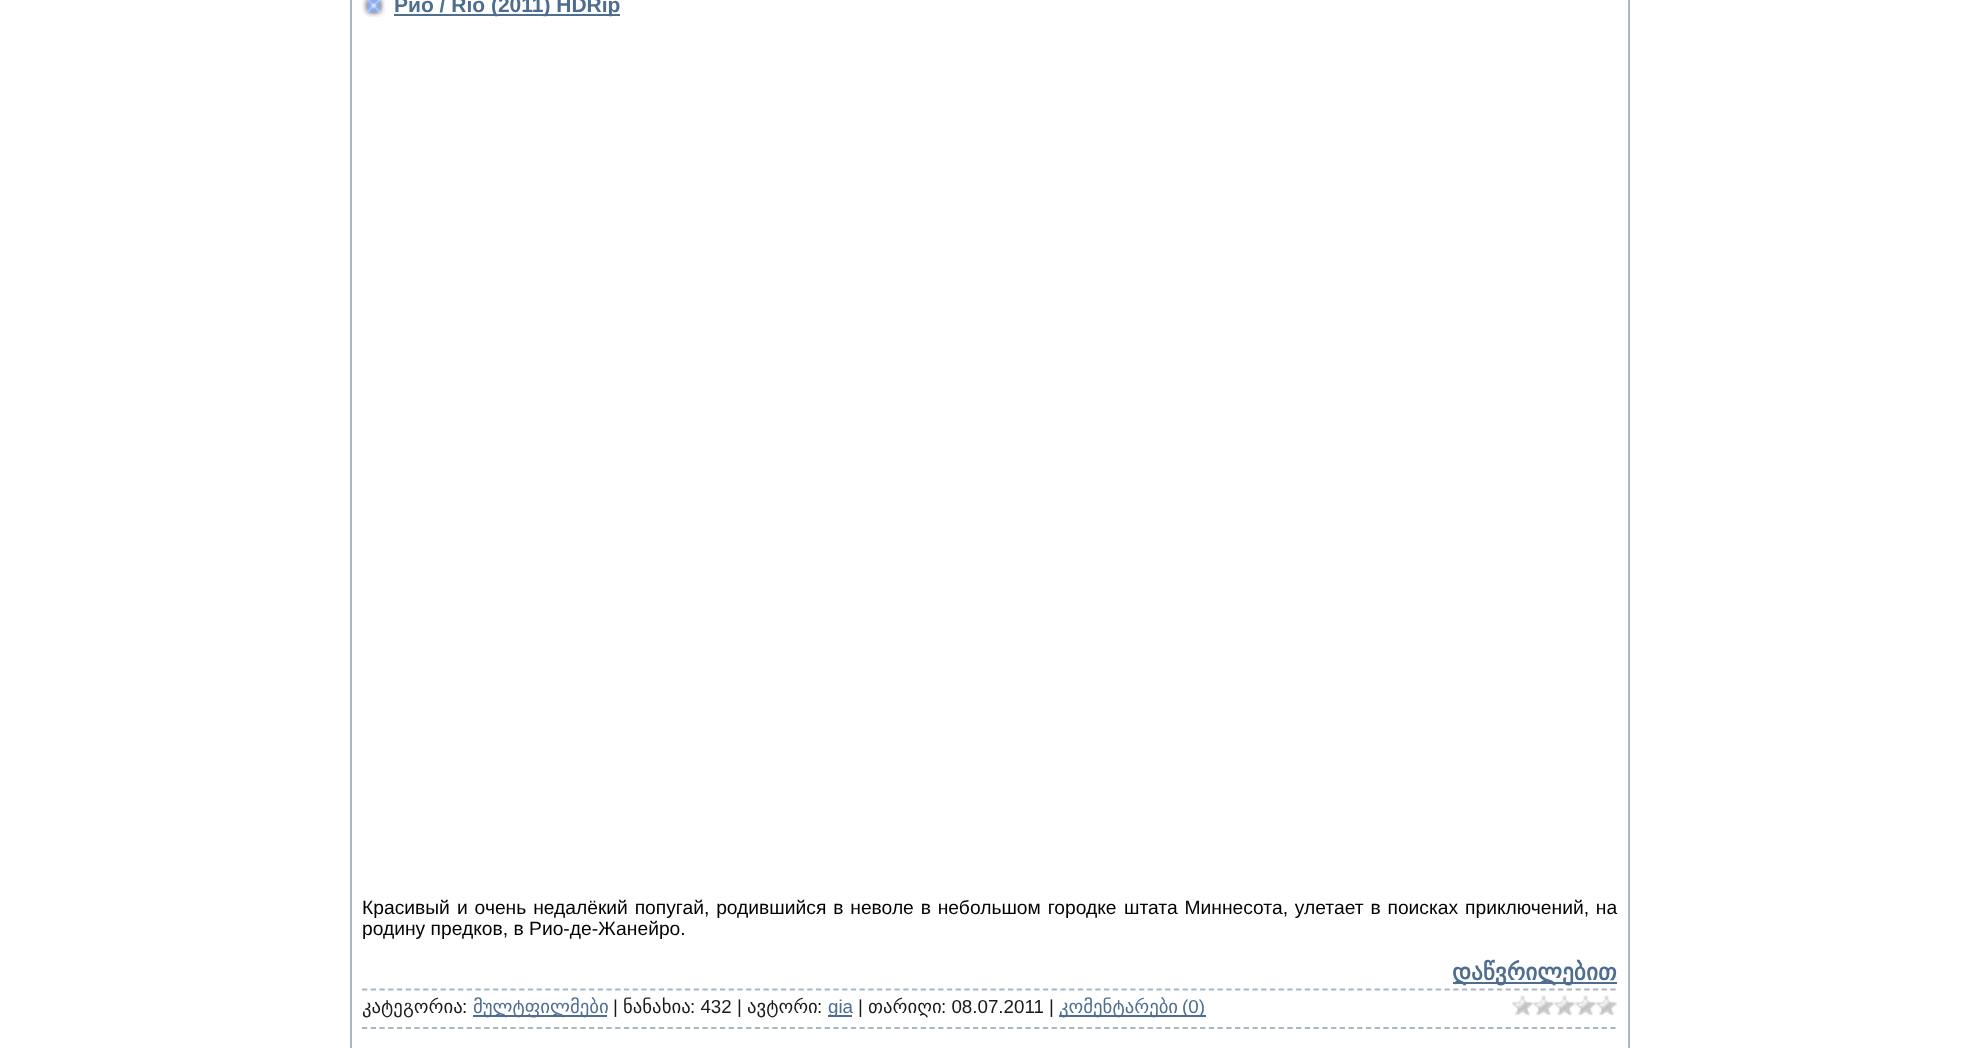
async function draw(canvas) {
	canvas.width = 1979;
	canvas.height = 1048;
	const c = canvas.getContext('2d');
	c.miterLimit = 4;
	c.fontKerning = 'normal';
	async function loadImage(src) {
		const img = new Image();
		img.src = src;
		await img.decode();
		return img;
	}

	c.fillStyle = '#fff';
	c.fillRect(0, 0, 1979, 1048);
	c.fillStyle = '#a9b8c2';
	c.fillRect(1628, 0, 2, 1048);
	c.fillRect(350, 0, 2, 1048);
	c.drawImage(await loadImage('img1.png'), 362, 0, 23, 17);
	c.fillStyle = '#4d6d91';
	c.fillRect(394, 14, 226, 2);
	c.font = 'bold 21px Liberation Sans';
	c.fillText('Рио / Rio (2011) HDRip', 394, 12);
	c.font = '19.25px Liberation Sans';
	c.fillStyle = '#000';
	c.fillText('Красивый', 362, 914);
	c.wordSpacing = '1.5px';
	c.fillText('и очень недалёкий попугай, родившийся в неволе в небольшом городке', 457, 914);
	c.fillText('штата Миннесота, улетает в поисках приключений, на', 1124, 914);
	c.wordSpacing = '0px';
	c.fillText('родину предков, в Рио-де-Жанейро.', 362, 935);
	c.fillStyle = '#4d6d91';
	c.fillRect(1453, 982, 164, 2);
	c.font = 'bold 23.25px DejaVu Sans';
	c.fillText('დაწვრილებით', 1452, 980);
	c.beginPath();
	c.moveTo(362, 989.5);
	c.lineTo(1617, 989.5);
	c.strokeStyle = '#a9b8c2';
	c.lineWidth = 1.8;
	c.setLineDash([5.25, 3.48]);
	c.stroke();
	c.beginPath();
	c.moveTo(362, 1028);
	c.lineTo(1617, 1028);
	c.stroke();
	c.font = '18.75px DejaVu Sans';
	c.fillStyle = '#1a1a1a';
	c.fillText('კატეგორია', 362, 1013);
	c.font = '18.75px Liberation Sans';
	c.fillText(':', 462, 1013);
	c.fillStyle = '#4d6d91';
	c.fillRect(473, 1015, 134, 2);
	c.font = '18.75px DejaVu Sans';
	c.fillText('მულტფილმები', 473, 1013);
	c.font = '18.75px Liberation Sans';
	c.fillStyle = '#1a1a1a';
	c.fillText('|', 613, 1013);
	c.font = '18.75px DejaVu Sans';
	c.fillText('ნანახია', 623, 1013);
	c.font = '18.75px Liberation Sans';
	c.fillText(': 432 |', 690, 1013);
	c.font = '18.75px DejaVu Sans';
	c.fillText('ავტორი', 747, 1013);
	c.font = '18.75px Liberation Sans';
	c.fillText(':', 817, 1013);
	c.fillStyle = '#4d6d91';
	c.fillRect(828, 1015, 24, 2);
	c.fillText('gia', 828, 1013);
	c.fillStyle = '#1a1a1a';
	c.fillText('|', 858, 1013);
	c.font = '18.75px DejaVu Sans';
	c.fillText('თარიღი', 868, 1013);
	c.font = '18.75px Liberation Sans';
	c.fillText(': 08.07.2011 |', 941, 1013);
	c.fillStyle = '#4d6d91';
	c.fillRect(1059, 1015, 147, 2);
	c.font = '18.75px DejaVu Sans';
	c.fillText('კომენტარები', 1059, 1013);
	c.font = '18.75px Liberation Sans';
	c.fillText('(0)', 1182, 1013);
	c.drawImage(await loadImage('img2.png'), 1512, 995, 105, 22);
}

draw(document.querySelector('canvas'));
